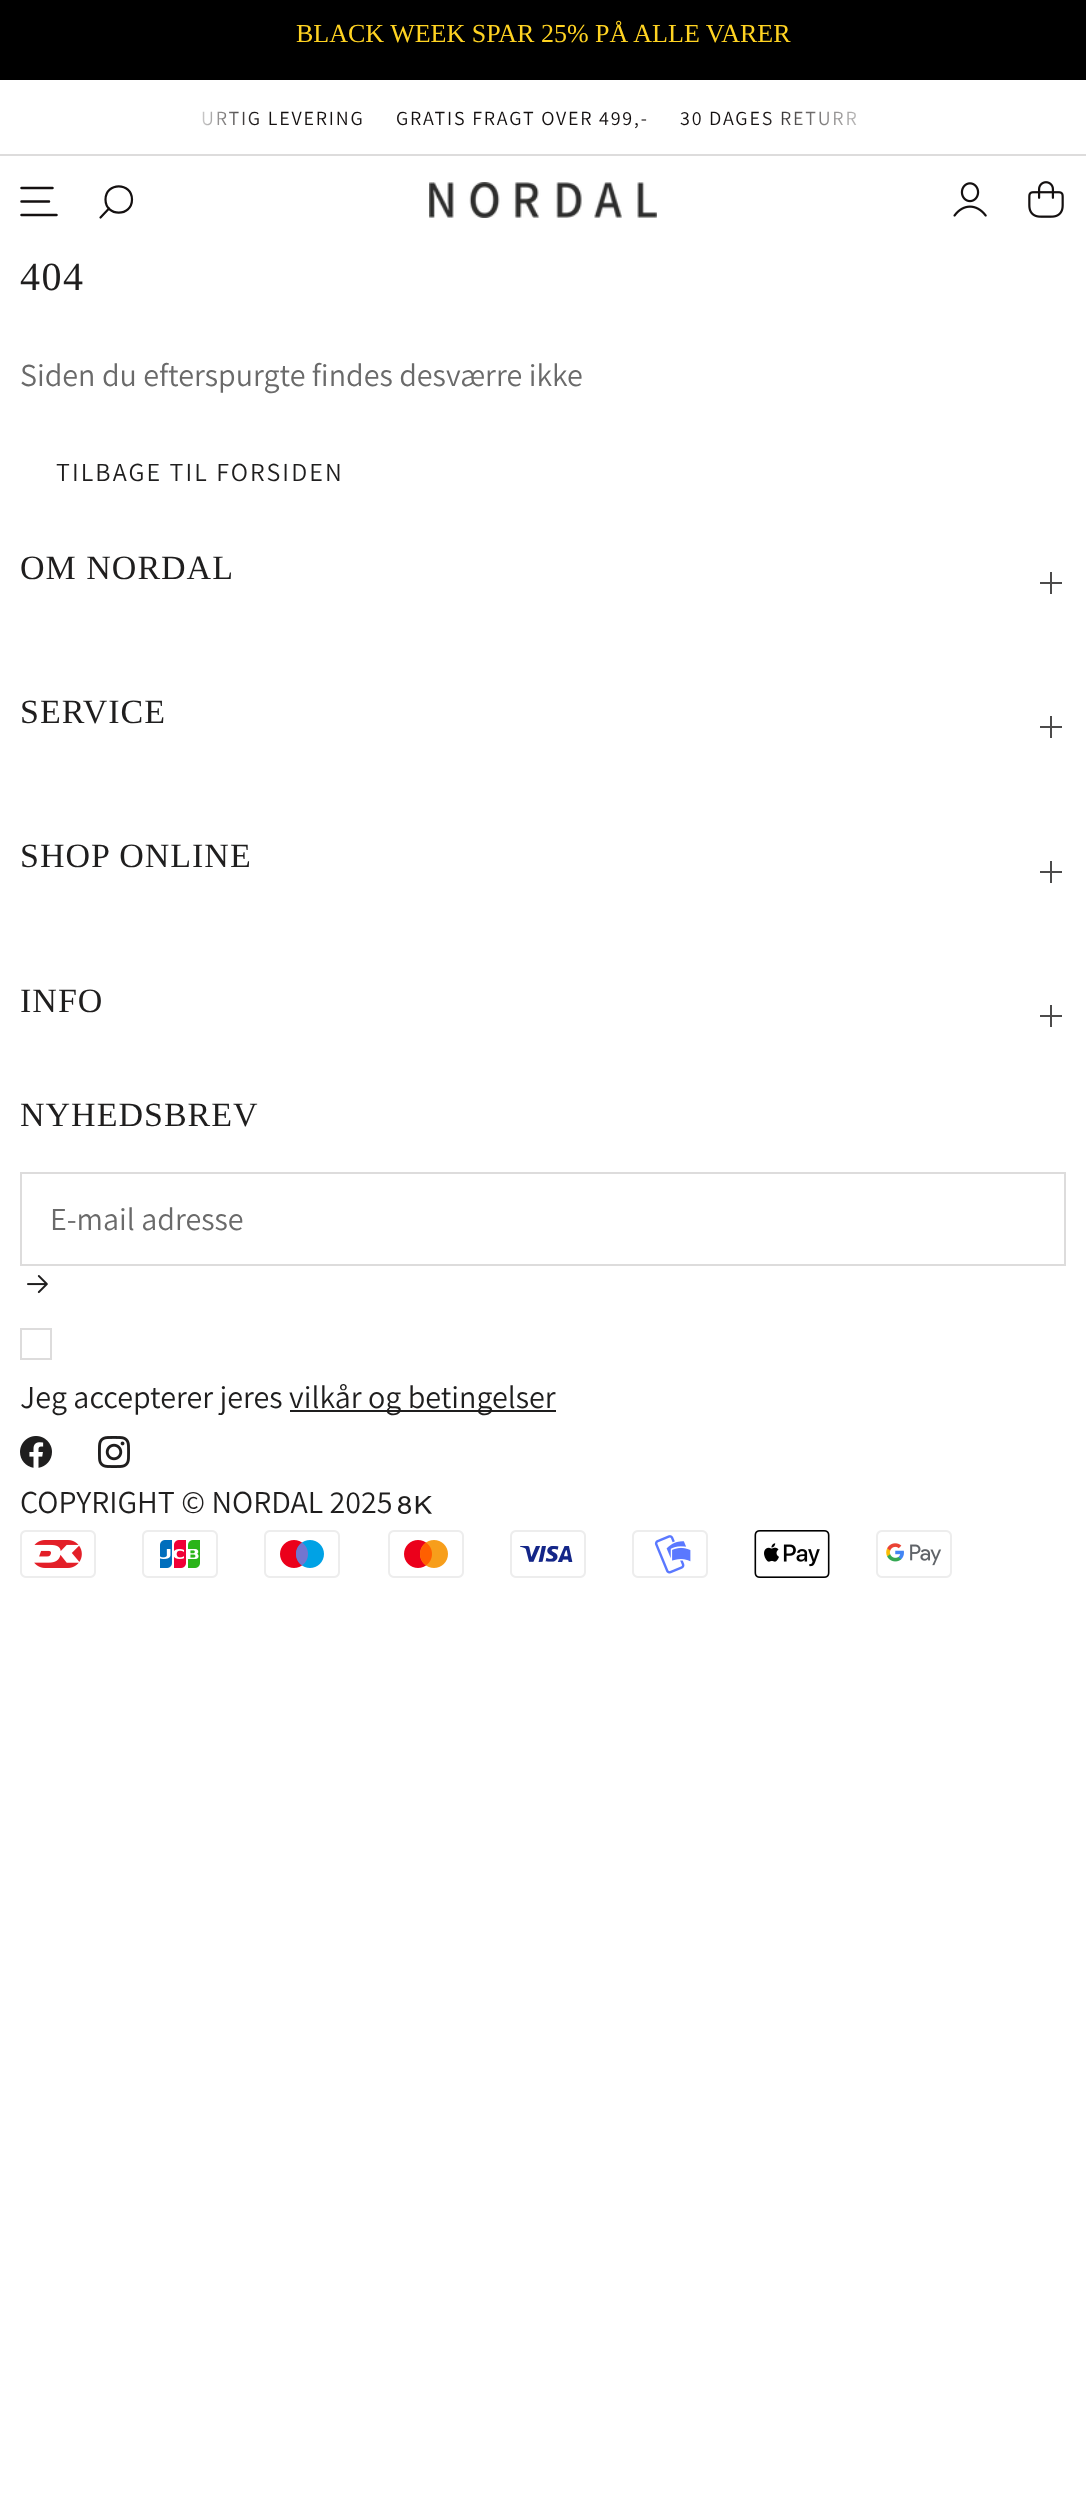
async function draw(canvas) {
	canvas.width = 1086;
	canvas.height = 2515;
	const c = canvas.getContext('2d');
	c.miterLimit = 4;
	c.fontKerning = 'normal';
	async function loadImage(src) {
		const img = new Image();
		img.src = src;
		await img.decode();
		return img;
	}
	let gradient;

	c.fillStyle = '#fff';
	c.fillRect(0, 0, 1086, 2515);
	c.fillStyle = '#000';
	c.fillRect(0, 0, 1086, 80);
	c.font = '26px Liberation Serif';
	c.fillStyle = '#ffd322';
	c.fillText('BLACK WEEK SPAR 25% PÅ ALLE VARER', 296, 42);
	c.fillStyle = '#dddcdc';
	c.fillRect(0, 154, 1086, 2);
	c.letterSpacing = '1.8px';
	c.font = '20px Assistant';
	c.fillStyle = '#141010';
	for (const [text, x, y] of [
		['URTIG LEVERING', 201, 125],
		['GRATIS FRAGT OVER 499,-', 396, 125],
		['30 DAGES RETURR', 680, 125],
	]) {
		c.fillText(text, x, y);
	}
	gradient = c.createLinearGradient(186, 119, 900, 119);
	gradient.addColorStop(0, '#fff');
	gradient.addColorStop(0.1, '#ffffff00');
	c.fillStyle = gradient;
	c.fillRect(202, 111, 54, 15);
	gradient = c.createLinearGradient(186, 119, 900, 119);
	gradient.addColorStop(0.8, '#ffffff00');
	gradient.addColorStop(1, '#fff');
	c.fillStyle = gradient;
	c.fillRect(763, 111, 94, 15);
	c.beginPath();
	c.moveTo(21.5, 188);
	c.lineTo(52.5, 188);
	c.moveTo(21.5, 201.5);
	c.lineTo(49, 201.5);
	c.moveTo(21.5, 215);
	c.lineTo(56.5, 215);
	c.strokeStyle = '#141010';
	c.lineWidth = 2.5;
	c.lineCap = 'round';
	c.stroke();
	c.beginPath();
	c.moveTo(132, 199.5);
	c.bezierCurveTo(132, 217, 105.5, 217, 105.5, 199.5);
	c.bezierCurveTo(105.5, 182, 132, 182, 132, 199.5);
	c.closePath();
	c.lineWidth = 2.2;
	c.lineCap = 'butt';
	c.stroke();
	c.beginPath();
	c.moveTo(109, 208.5);
	c.lineTo(100.5, 217.5);
	c.lineCap = 'round';
	c.stroke();
	c.drawImage(await loadImage('img1.png'), 953, 182, 34, 35);
	c.drawImage(await loadImage('img2.png'), 1028, 181, 36, 37);
	c.drawImage(await loadImage('img3.png'), 429, 182, 228, 36);
	c.letterSpacing = '1.5px';
	c.font = '40px Liberation Serif';
	c.fillStyle = '#1f1e1e';
	c.fillText('404', 20, 290);
	c.letterSpacing = '0px';
	c.font = '32px Assistant';
	c.fillStyle = '#6a6a6a';
	c.fillText('Siden du efterspurgte findes desværre ikke', 20, 386);
	c.letterSpacing = '2.1px';
	c.font = '26px Assistant';
	c.fillStyle = '#1f1e1e';
	c.fillText('TILBAGE TIL FORSIDEN', 56, 481);
	c.letterSpacing = '1px';
	c.font = '34px Liberation Serif';
	c.fillText('OM NORDAL', 20, 579);
	c.fillStyle = '#4c4b4b';
	c.fillRect(1050, 572, 2, 22);
	c.fillRect(1040, 582, 22, 2);
	c.fillStyle = '#1f1e1e';
	c.fillText('SERVICE', 20, 723);
	c.fillStyle = '#4c4b4b';
	c.fillRect(1050, 716, 2, 22);
	c.fillRect(1040, 726, 22, 2);
	c.fillStyle = '#1f1e1e';
	c.fillText('SHOP ONLINE', 20, 867);
	c.fillStyle = '#4c4b4b';
	c.fillRect(1050, 861, 2, 22);
	c.fillRect(1040, 871, 22, 2);
	c.fillStyle = '#1f1e1e';
	c.fillText('INFO', 20, 1012);
	c.fillStyle = '#4c4b4b';
	c.fillRect(1050, 1005, 2, 22);
	c.fillRect(1040, 1015, 22, 2);
	c.fillStyle = '#1f1e1e';
	c.fillText('NYHEDSBREV', 20, 1126);
	c.strokeStyle = '#dddcdc';
	c.lineWidth = 2;
	c.strokeRect(21, 1173, 1044, 92);
	c.letterSpacing = '0px';
	c.font = '32px Assistant';
	c.fillStyle = '#6a6a6a';
	c.fillText('E-mail adresse', 50, 1230);
	c.drawImage(await loadImage('img4.png'), 27, 1275, 21, 19);
	c.strokeRect(21, 1329, 30, 30);
	c.fillStyle = '#1f1e1e';
	c.fillText('Jeg accepterer jeres', 20, 1408);
	c.fillRect(290, 1410, 266, 2);
	c.fillText('vilkår og betingelser', 289, 1408);
	c.drawImage(await loadImage('img5.png'), 20, 1436, 32, 32);
	c.drawImage(await loadImage('img6.png'), 98, 1436, 32, 32);
	c.fillText('COPYRIGHT © NORDAL 2025', 20, 1513);
	c.drawImage(await loadImage('img7.png'), 398, 1496, 34, 18);
	c.drawImage(await loadImage('img8.png'), 20, 1530, 76, 48);
	c.drawImage(await loadImage('img9.png'), 142, 1530, 76, 48);
	c.drawImage(await loadImage('img10.png'), 264, 1530, 76, 48);
	c.drawImage(await loadImage('img11.png'), 388, 1530, 76, 48);
	c.drawImage(await loadImage('img12.png'), 510, 1530, 76, 48);
	c.drawImage(await loadImage('img13.png'), 632, 1530, 76, 48);
	c.drawImage(await loadImage('img14.png'), 754, 1530, 76, 48);
	c.drawImage(await loadImage('img15.png'), 876, 1530, 76, 48);
}

draw(document.querySelector('canvas'));
